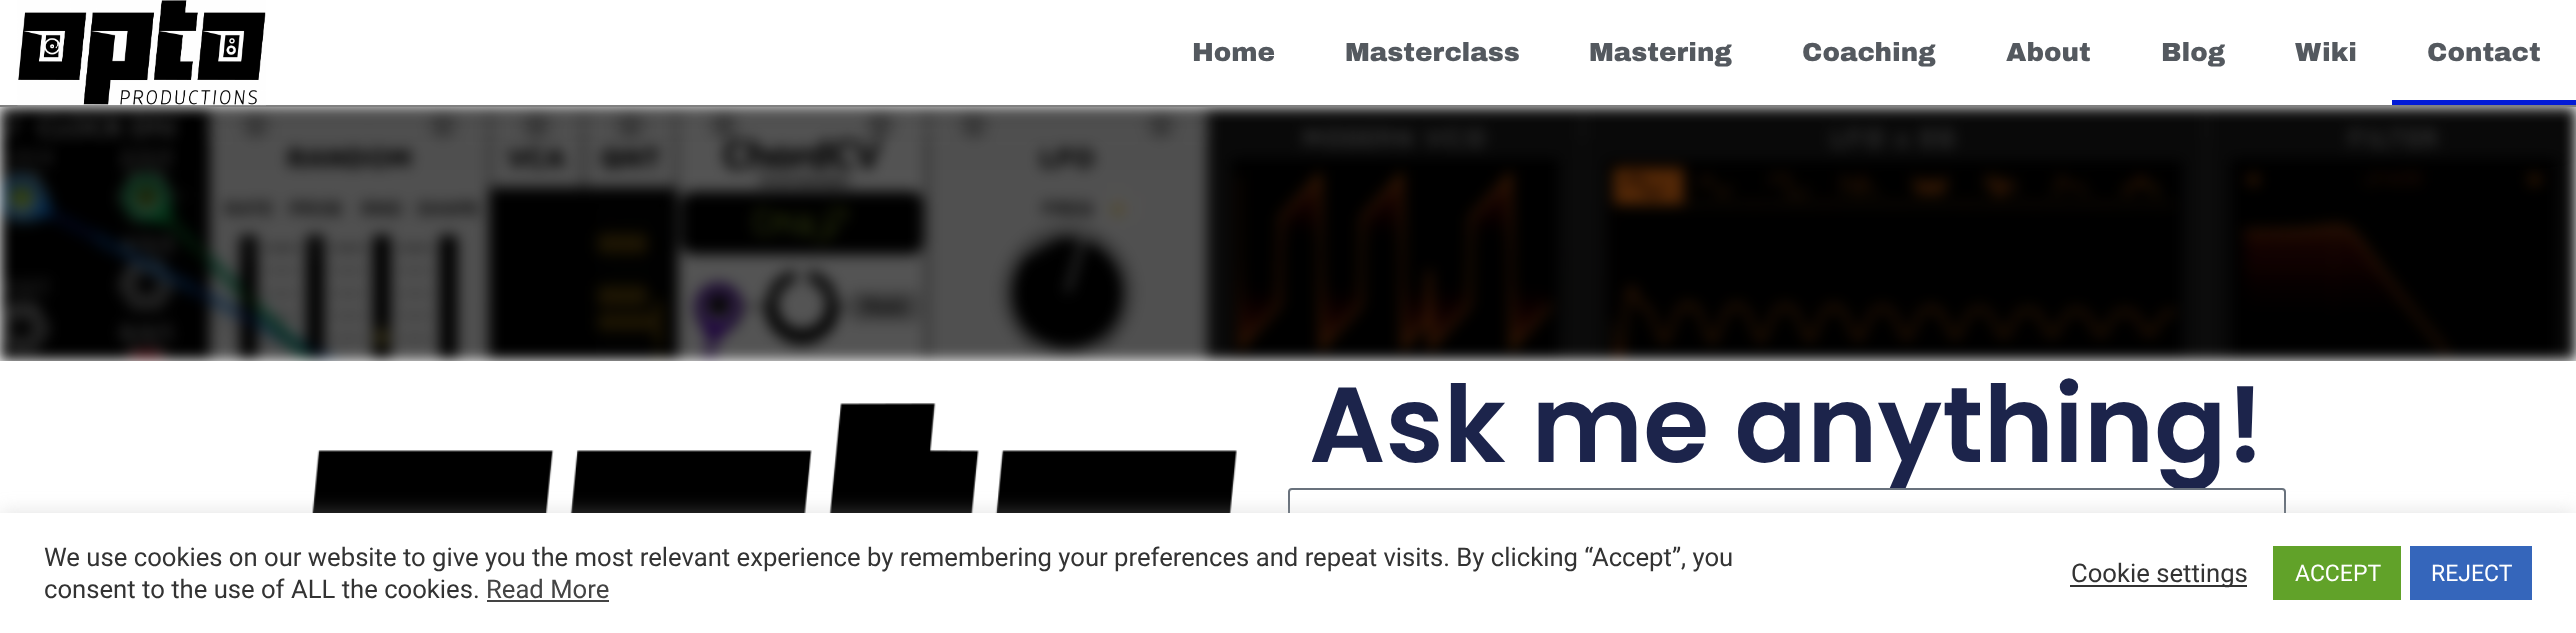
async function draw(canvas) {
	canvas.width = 2576;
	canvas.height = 633;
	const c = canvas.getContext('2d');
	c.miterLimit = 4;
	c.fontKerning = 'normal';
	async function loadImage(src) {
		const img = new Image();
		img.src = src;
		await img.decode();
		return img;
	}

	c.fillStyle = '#fff';
	c.fillRect(0, 0, 2576, 633);
	c.drawImage(await loadImage('img2.png'), 0, 107, 2576, 254);
	c.fillStyle = '#0000001a';
	c.filter = 'blur(33px)';
	c.beginPath();
	c.rect(0, 0, 2576, 107);
	c.fill();
	c.filter = 'none';
	c.fillStyle = '#fff';
	c.fillRect(0, 0, 2576, 105);
	c.fillStyle = '#808080';
	c.fillRect(0, 105, 2576, 2);
	c.drawImage(await loadImage('img1.png'), 17, 0, 249, 106);
	c.font = '900 26.25px Archivo Black';
	c.fillStyle = '#54595f';
	for (const [text, x, y] of [
		['Home', 1192, 61],
		['Masterclass', 1345, 61],
		['Mastering', 1589, 61],
		['Coaching', 1802, 61],
		['About', 2006, 61],
		['Blog', 2161, 61],
		['Wiki', 2295, 61],
		['Contact', 2427, 61],
	]) {
		c.fillText(text, x, y);
	}
	c.fillStyle = '#021ad6';
	c.fillRect(2392, 100, 184, 5);
	c.drawImage(await loadImage('img3.png'), 312, 403, 925, 110);
	c.font = '600 106.75px Poppins';
	c.fillStyle = '#1c244b';
	c.fillText('Ask me anything!', 1309, 462);
	c.fillStyle = '#fff';
	c.beginPath();
	c.roundRect(1289, 489, 996, 56, 3);
	c.fill();
	c.strokeStyle = '#69727d';
	c.lineWidth = 2;
	c.stroke();
	c.fillStyle = '#acabab4d';
	c.filter = 'blur(9px)';
	c.beginPath();
	c.rect(0, 511, 2576, 121);
	c.fill();
	c.filter = 'none';
	c.fillStyle = '#fff';
	c.fillRect(0, 513, 2576, 120);
	c.font = '25.67px Roboto';
	c.fillStyle = '#333';
	c.fillText('We use cookies on our website to give you the most relevant experience by remembering your preferences and repeat visits. By clicking “Accept”, you', 44, 566);
	c.fillText('consent to the use of ALL the cookies.', 44, 598);
	c.fillStyle = '#444';
	c.fillText('Read More', 486, 598);
	c.fillRect(487, 600, 122, 2);
	c.fillStyle = '#333';
	c.fillRect(2070, 585, 177, 2);
	c.fillText('Cookie settings', 2071, 582);
	c.fillStyle = '#61a229';
	c.fillRect(2273, 546, 128, 54);
	c.font = '23px Roboto';
	c.fillStyle = '#fff';
	c.fillText('ACCEPT', 2295, 581);
	c.fillStyle = '#3566bb';
	c.fillRect(2410, 546, 122, 54);
	c.fillStyle = '#fff';
	c.fillText('REJECT', 2431, 581);
}

draw(document.querySelector('canvas'));
